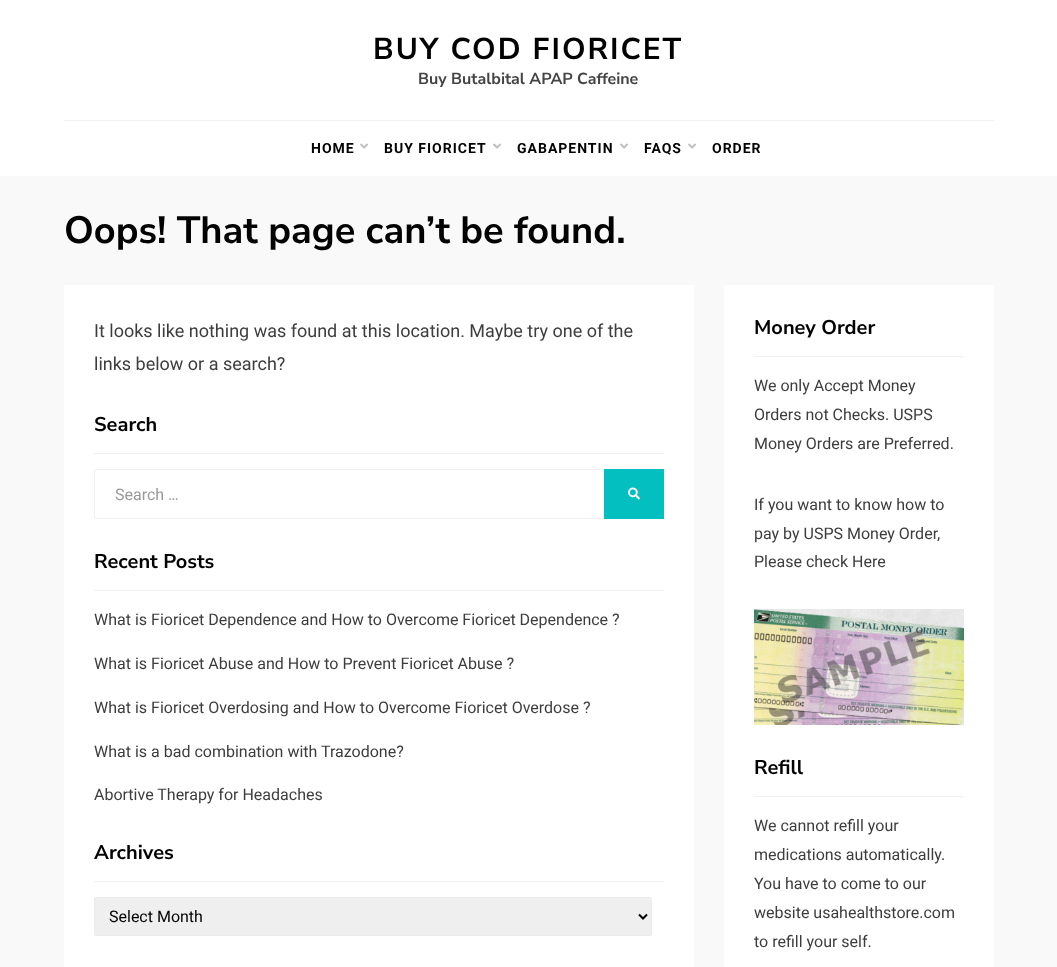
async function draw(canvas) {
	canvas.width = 1057;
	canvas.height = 967;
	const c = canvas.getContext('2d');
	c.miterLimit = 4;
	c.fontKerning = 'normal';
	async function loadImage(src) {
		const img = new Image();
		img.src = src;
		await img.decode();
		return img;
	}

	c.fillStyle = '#f9f9f9';
	c.fillRect(0, 0, 1057, 967);
	c.fillStyle = '#fff';
	c.fillRect(0, 0, 1057, 176);
	c.letterSpacing = '2px';
	c.font = 'bold 30px Nunito Sans';
	c.fillStyle = '#020202';
	c.fillText('BUY COD FIORICET', 373, 59);
	c.letterSpacing = '0px';
	c.font = 'bold 16px Nunito Sans';
	c.fillStyle = '#444';
	c.fillText('Buy Butalbital APAP Caffeine', 418, 84);
	c.fillStyle = '#f0f0f0';
	c.fillRect(64, 120, 930, 1);
	c.letterSpacing = '1px';
	c.font = 'bold 14px Roboto';
	c.fillStyle = '#020202';
	c.fillText('HOME', 311, 153);
	c.drawImage(await loadImage('img1.png'), 360, 143, 8, 6);
	c.fillText('BUY FIORICET', 384, 153);
	c.drawImage(await loadImage('img1.png'), 493, 143, 8, 6);
	c.fillText('GABAPENTIN', 517, 153);
	c.drawImage(await loadImage('img1.png'), 620, 143, 8, 6);
	c.fillText('FAQS', 644, 153);
	c.drawImage(await loadImage('img1.png'), 688, 143, 8, 6);
	c.fillText('ORDER', 712, 153);
	c.letterSpacing = '0px';
	c.font = 'bold 38px Nunito Sans';
	c.fillText('Oops! That page can’t be found.', 64, 243);
	c.fillStyle = '#fff';
	c.fillRect(64, 285, 630, 682);
	c.font = '18px Roboto';
	c.fillStyle = '#3d3d3d';
	c.fillText('It looks like nothing was found at this location. Maybe try one of the', 94, 337);
	c.fillText('links below or a search?', 94, 370);
	c.fillStyle = '#f0f0f0';
	c.fillRect(94, 453, 570, 1);
	c.font = 'bold 20px Nunito Sans';
	c.fillStyle = '#020202';
	c.fillText('Search', 94, 431);
	c.beginPath();
	c.roundRect(94.5, 469.5, 509, 49, 1.5);
	c.strokeStyle = '#f0f0f0';
	c.stroke();
	c.font = '16px Roboto';
	c.fillStyle = '#999';
	c.fillText('Search …', 115, 500);
	c.fillStyle = '#04bfbf';
	c.fillRect(604, 469, 60, 50);
	c.drawImage(await loadImage('img2.png'), 628, 487, 12, 13);
	c.fillStyle = '#f0f0f0';
	c.fillRect(94, 590, 570, 1);
	c.font = 'bold 20px Nunito Sans';
	c.fillStyle = '#020202';
	c.fillText('Recent Posts', 94, 568);
	c.font = '16px Roboto';
	c.fillStyle = '#3d3d3d';
	for (const [text, x, y] of [
		['What is Fioricet Dependence and How to Overcome Fioricet Dependence ?', 94, 625],
		['What is Fioricet Abuse and How to Prevent Fioricet Abuse ?', 94, 669],
		['What is Fioricet Overdosing and How to Overcome Fioricet Overdose ?', 94, 713],
		['What is a bad combination with Trazodone?', 94, 757],
		['Abortive Therapy for Headaches', 94, 800],
	]) {
		c.fillText(text, x, y);
	}
	c.fillStyle = '#f0f0f0';
	c.fillRect(94, 881, 570, 1);
	c.font = 'bold 20px Nunito Sans';
	c.fillStyle = '#020202';
	c.fillText('Archives', 94, 859);
	c.fillStyle = '#efefef';
	c.beginPath();
	c.roundRect(94.5, 897.5, 557, 38, 1.5);
	c.fill();
	c.strokeStyle = '#ebebeb';
	c.stroke();
	c.beginPath();
	c.moveTo(639, 914.5);
	c.lineTo(643, 918.5);
	c.lineTo(647, 914.5);
	c.strokeStyle = '#020202';
	c.lineWidth = 2;
	c.stroke();
	c.font = '16px Roboto';
	c.fillStyle = '#020202';
	c.fillText('Select Month', 109, 922);
	c.fillStyle = '#fff';
	c.fillRect(724, 285, 270, 682);
	c.fillStyle = '#f0f0f0';
	c.fillRect(754, 356, 210, 1);
	c.font = 'bold 20px Nunito Sans';
	c.fillStyle = '#020202';
	c.fillText('Money Order', 754, 334);
	c.font = '16px Roboto';
	c.fillStyle = '#3d3d3d';
	for (const [text, x, y] of [
		['We only Accept Money', 754, 391],
		['Orders not Checks. USPS', 754, 420],
		['Money Orders are Preferred.', 754, 449],
		['If you want to know how to', 754, 510],
		['pay by USPS Money Order,', 754, 539],
		['Please check Here', 754, 567],
	]) {
		c.fillText(text, x, y);
	}
	c.drawImage(await loadImage('img3.png'), 754, 609, 210, 116);
	c.fillStyle = '#f0f0f0';
	c.fillRect(754, 796, 210, 1);
	c.font = 'bold 20px Nunito Sans';
	c.fillStyle = '#020202';
	c.fillText('Refill', 754, 774);
	c.font = '16px Roboto';
	c.fillStyle = '#3d3d3d';
	for (const [text, x, y] of [
		['We cannot refill your', 754, 831],
		['medications automatically.', 754, 860],
		['You have to come to our', 754, 889],
		['website usahealthstore.com', 754, 918],
		['to refill your self.', 754, 947],
	]) {
		c.fillText(text, x, y);
	}
}

draw(document.querySelector('canvas'));
